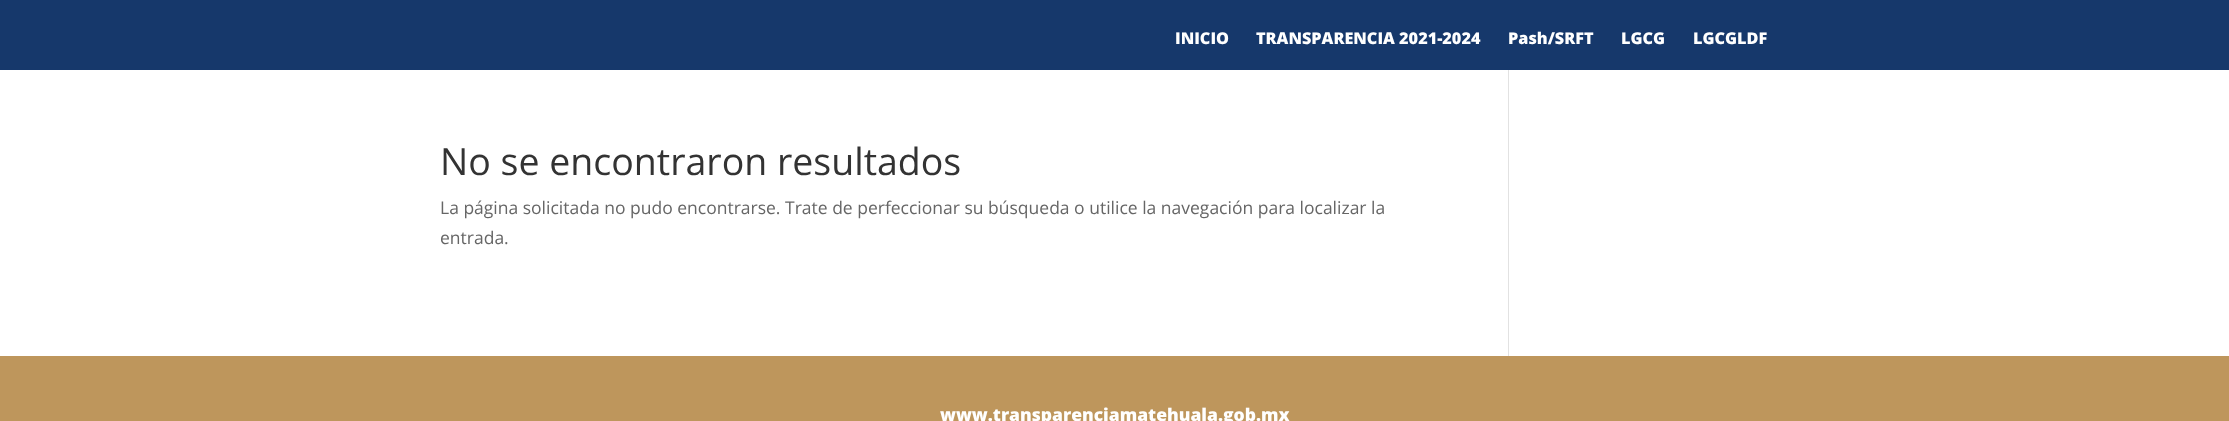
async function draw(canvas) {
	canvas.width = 2229;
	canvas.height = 421;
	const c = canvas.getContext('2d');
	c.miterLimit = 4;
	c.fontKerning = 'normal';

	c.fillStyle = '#fff';
	c.fillRect(0, 0, 2229, 421);
	c.fillStyle = '#16386b';
	c.fillRect(0, 0, 2229, 70);
	c.font = '800 16.25px Open Sans';
	c.fillStyle = '#fff';
	for (const [text, x, y] of [
		['INICIO', 1175, 44],
		['TRANSPARENCIA 2021-2024', 1256, 44],
		['Pash/SRFT', 1508, 44],
		['LGCG', 1621, 44],
		['LGCGLDF', 1693, 44],
	]) {
		c.fillText(text, x, y);
	}
	c.font = '37.5px Open Sans';
	c.fillStyle = '#333';
	c.fillText('No se encontraron resultados', 440, 175);
	c.font = '17.5px Open Sans';
	c.fillStyle = '#666';
	c.fillText('La página solicitada no pudo encontrarse. Trate de perfeccionar su búsqueda o utilice la navegación para localizar la', 440, 214);
	c.fillText('entrada.', 440, 244);
	c.fillStyle = '#e2e2e2';
	c.fillRect(1508, 70, 1, 286);
	c.fillStyle = '#be965c';
	c.fillRect(0, 356, 2229, 65);
	c.font = '800 17.5px Open Sans';
	c.fillStyle = '#fff';
	c.fillText('www.transparenciamatehuala.gob.mx', 940, 421);
}

draw(document.querySelector('canvas'));
